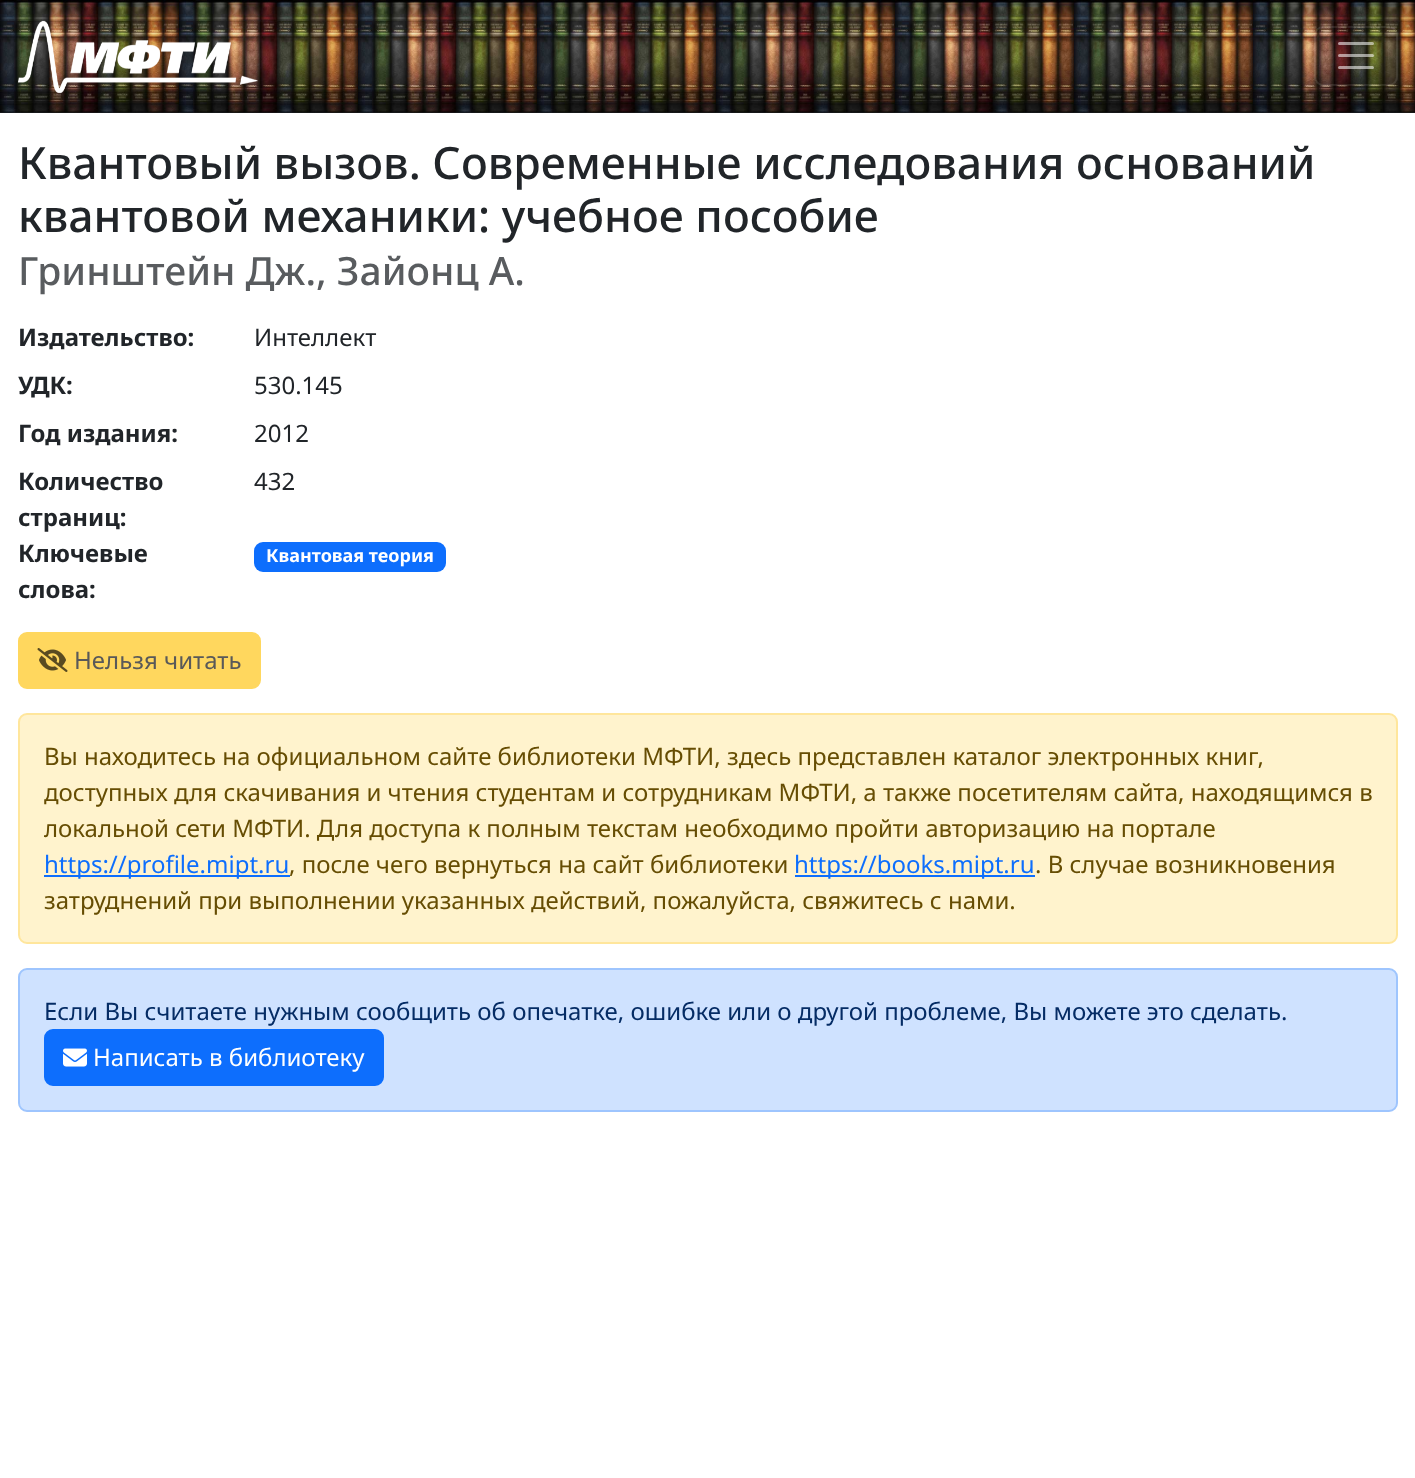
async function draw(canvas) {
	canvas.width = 1415;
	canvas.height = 1478;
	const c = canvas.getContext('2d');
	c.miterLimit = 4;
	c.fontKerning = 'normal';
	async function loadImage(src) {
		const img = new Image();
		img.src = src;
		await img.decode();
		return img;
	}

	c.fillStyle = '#fff';
	c.fillRect(0, 0, 1415, 1478);
	c.fillStyle = '#212529';
	c.fillRect(0, 112, 1415, 1);
	c.drawImage(await loadImage('img1.png'), 0, 0, 1415, 113);
	c.drawImage(await loadImage('img2.png'), 18, 20, 240, 73);
	c.beginPath();
	c.roundRect(1315, 27, 82, 58, 8);
	c.strokeStyle = '#ffffff1a';
	c.lineWidth = 2;
	c.stroke();
	c.beginPath();
	c.moveTo(1339.5, 43.5);
	c.lineTo(1372.5, 43.5);
	c.moveTo(1339.5, 55.5);
	c.lineTo(1372.5, 55.5);
	c.moveTo(1339.5, 67.5);
	c.lineTo(1372.5, 67.5);
	c.strokeStyle = '#ffffff8c';
	c.lineWidth = 3;
	c.lineCap = 'round';
	c.stroke();
	c.font = '500 44.55px Noto Sans';
	c.fillText('Квантовый вызов. Современные исследования оснований', 18, 179);
	c.fillText('квантовой механики: учебное пособие', 18, 232);
	c.font = '500 39px Noto Sans';
	c.fillStyle = '#595c5f';
	c.fillText('Гринштейн Дж., Зайонц А.', 18, 285);
	c.font = 'bold 24px Noto Sans';
	c.fillStyle = '#212529';
	c.fillText('Издательство:', 18, 346);
	c.font = '24px Noto Sans';
	c.fillText('Интеллект', 254, 346);
	c.font = 'bold 24px Noto Sans';
	c.fillText('УДК:', 18, 394);
	c.font = '24px Noto Sans';
	c.fillText('530.145', 254, 394);
	c.font = 'bold 24px Noto Sans';
	c.fillText('Год издания:', 18, 442);
	c.font = '24px Noto Sans';
	c.fillText('2012', 254, 442);
	c.font = 'bold 24px Noto Sans';
	c.fillText('Количество', 18, 490);
	c.fillText('страниц:', 18, 526);
	c.font = '24px Noto Sans';
	c.fillText('432', 254, 490);
	c.font = 'bold 24px Noto Sans';
	c.fillText('Ключевые', 18, 562);
	c.fillText('слова:', 18, 598);
	c.fillStyle = '#0d6efd';
	c.beginPath();
	c.roundRect(254, 542, 192, 30, 9);
	c.fill();
	c.font = 'bold 18px Noto Sans';
	c.fillStyle = '#fff';
	c.fillText('Квантовая теория', 266, 562);
	c.fillStyle = '#ffd75e';
	c.beginPath();
	c.roundRect(19, 633, 241, 55, 8);
	c.fill();
	c.strokeStyle = '#ffd75e';
	c.lineWidth = 2;
	c.stroke();
	c.drawImage(await loadImage('img3.png'), 37, 648, 31, 24);
	c.font = '24px Noto Sans';
	c.fillStyle = '#595959';
	c.fillText('Нельзя читать', 74, 669);
	c.fillStyle = '#fff3cd';
	c.beginPath();
	c.roundRect(19, 714, 1378, 229, 8);
	c.fill();
	c.strokeStyle = '#ffe69c';
	c.stroke();
	c.fillStyle = '#664d03';
	for (const [text, x, y] of [
		['Вы находитесь на официальном сайте библиотеки МФТИ, здесь представлен каталог электронных книг,', 44, 765],
		['доступных для скачивания и чтения студентам и сотрудникам МФТИ, а также посетителям сайта, находящимся в', 44, 801],
		['локальной сети МФТИ. Для доступа к полным текстам необходимо пройти авторизацию на портале', 44, 837],
	]) {
		c.fillText(text, x, y);
	}
	c.fillStyle = '#0d6efd';
	c.fillRect(44, 875, 246, 2);
	c.fillText('https://profile.mipt.ru', 44, 873);
	c.fillStyle = '#664d03';
	c.fillText(', после чего вернуться на сайт библиотеки', 289, 873);
	c.fillStyle = '#0d6efd';
	c.fillRect(795, 875, 240, 2);
	c.fillText('https://books.mipt.ru', 794, 873);
	c.fillStyle = '#664d03';
	c.fillText('. В случае возникновения', 1035, 873);
	c.fillText('затруднений при выполнении указанных действий, пожалуйста, свяжитесь с нами.', 44, 909);
	c.fillStyle = '#cfe2ff';
	c.beginPath();
	c.roundRect(19, 969, 1378, 142, 8);
	c.fill();
	c.strokeStyle = '#9ec5fe';
	c.stroke();
	c.fillStyle = '#052c65';
	c.fillText('Если Вы считаете нужным сообщить об опечатке, ошибке или о другой проблеме, Вы можете это сделать.', 44, 1020);
	c.fillStyle = '#0d6efd';
	c.beginPath();
	c.roundRect(45, 1030, 338, 55, 8);
	c.fill();
	c.strokeStyle = '#0d6efd';
	c.stroke();
	c.drawImage(await loadImage('img4.png'), 63, 1048, 24, 19);
	c.fillStyle = '#fff';
	c.fillText('Написать в библиотеку', 93, 1066);
}

draw(document.querySelector('canvas'));
